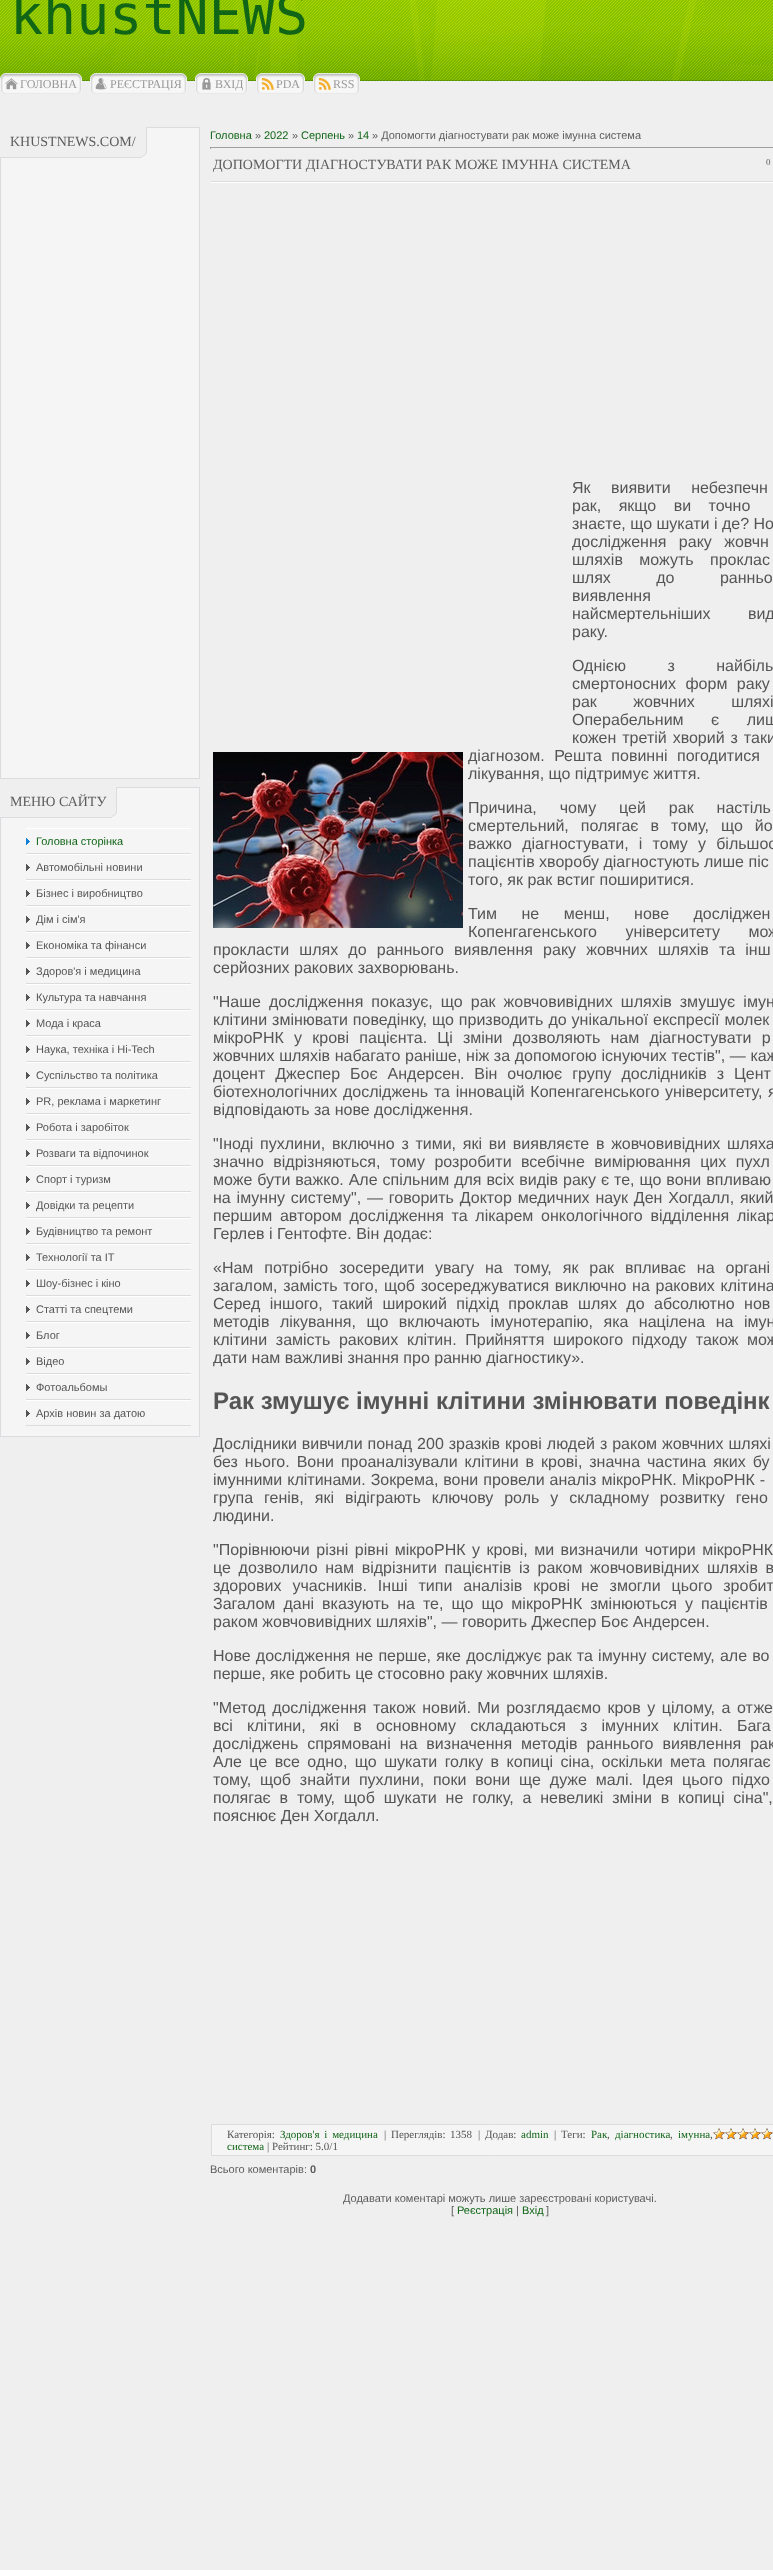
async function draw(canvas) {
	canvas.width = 773;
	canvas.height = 2570;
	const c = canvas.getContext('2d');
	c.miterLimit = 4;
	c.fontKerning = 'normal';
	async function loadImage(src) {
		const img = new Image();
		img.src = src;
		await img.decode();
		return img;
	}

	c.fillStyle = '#efefef';
	c.fillRect(0, 0, 773, 2570);
	c.drawImage(await loadImage('img1.png'), 0, 0, 773, 81);
	c.font = '55px DejaVu Sans Mono';
	c.fillStyle = '#116517';
	c.fillText('khustNEWS', 10, 34);
	c.drawImage(await loadImage('img2.png'), 704, 0, 69, 65);
	c.drawImage(await loadImage('img3.png'), 0, 73, 5, 21);
	c.drawImage(await loadImage('img4.png'), 5, 73, 72, 21);
	c.drawImage(await loadImage('img5.png'), 5, 78, 13, 12);
	c.font = '12px Liberation Serif';
	c.fillStyle = '#999';
	c.fillText('ГОЛОВНА', 20, 88);
	c.drawImage(await loadImage('img6.png'), 77, 73, 5, 21);
	c.drawImage(await loadImage('img7.png'), 90, 73, 5, 21);
	c.drawImage(await loadImage('img8.png'), 95, 73, 87, 21);
	c.drawImage(await loadImage('img9.png'), 95, 78, 12, 12);
	c.fillText('РЕЄСТРАЦІЯ', 110, 88);
	c.drawImage(await loadImage('img10.png'), 182, 73, 5, 21);
	c.drawImage(await loadImage('img3.png'), 195, 73, 5, 21);
	c.drawImage(await loadImage('img11.png'), 200, 73, 43, 21);
	c.drawImage(await loadImage('img12.png'), 202, 78, 9, 12);
	c.fillText('ВХІД', 215, 88);
	c.drawImage(await loadImage('img13.png'), 243, 73, 5, 21);
	c.drawImage(await loadImage('img14.png'), 256, 73, 5, 21);
	c.drawImage(await loadImage('img15.png'), 261, 73, 39, 21);
	c.drawImage(await loadImage('img16.png'), 261, 77, 13, 13);
	c.fillText('PDA', 276, 88);
	c.drawImage(await loadImage('img17.png'), 300, 73, 5, 21);
	c.drawImage(await loadImage('img18.png'), 313, 73, 5, 21);
	c.drawImage(await loadImage('img19.png'), 318, 73, 37, 21);
	c.drawImage(await loadImage('img16.png'), 318, 77, 13, 13);
	c.fillText('RSS', 333, 88);
	c.drawImage(await loadImage('img20.png'), 355, 73, 5, 21);
	for (const [x, y, w, h, color] of [
		[1, 128, 198, 650, '#f5f5f5'],
		[147, 127, 53, 1, '#dcdbe0'],
		[199, 127, 1, 652, '#dcdbe0'],
		[1, 128, 141, 29, '#efefef'],
		[0, 157, 142, 1, '#dcdbe0'],
	]) {
		c.fillStyle = color;
		c.fillRect(x, y, w, h);
	}
	c.font = '14px Liberation Serif';
	c.fillStyle = '#5d5d5d';
	c.fillText('KHUSTNEWS.COM/', 10, 146);
	c.drawImage(await loadImage('img21.png'), 142, 127, 5, 30);
	for (const [x, y, w, h, color] of [
		[0, 778, 200, 1, '#dcdbe0'],
		[0, 158, 1, 621, '#dcdbe0'],
		[1, 788, 198, 648, '#f5f5f5'],
		[117, 787, 83, 1, '#dcdbe0'],
		[199, 787, 1, 650, '#dcdbe0'],
		[1, 788, 111, 29, '#efefef'],
		[0, 817, 112, 1, '#dcdbe0'],
	]) {
		c.fillStyle = color;
		c.fillRect(x, y, w, h);
	}
	c.fillStyle = '#5d5d5d';
	c.fillText('МЕНЮ САЙТУ', 10, 806);
	c.drawImage(await loadImage('img21.png'), 112, 787, 5, 30);
	for (const [x, y, w, h, color] of [
		[0, 1436, 200, 1, '#dcdbe0'],
		[0, 818, 1, 619, '#dcdbe0'],
		[26, 828, 165, 1, '#fff'],
		[26, 853, 165, 1, '#dcdbe0'],
	]) {
		c.fillStyle = color;
		c.fillRect(x, y, w, h);
	}
	c.drawImage(await loadImage('img22.png'), 26, 838, 4, 7);
	c.font = '11px Liberation Sans';
	c.fillStyle = '#116517';
	c.fillText('Головна сторінка', 36, 845);
	c.fillStyle = '#fff';
	c.fillRect(26, 854, 165, 1);
	c.fillStyle = '#dcdbe0';
	c.fillRect(26, 879, 165, 1);
	c.drawImage(await loadImage('img23.png'), 26, 864, 4, 7);
	c.fillStyle = '#555';
	c.fillText('Автомобільні новини', 36, 871);
	c.fillStyle = '#fff';
	c.fillRect(26, 880, 165, 1);
	c.fillStyle = '#dcdbe0';
	c.fillRect(26, 905, 165, 1);
	c.drawImage(await loadImage('img23.png'), 26, 890, 4, 7);
	c.fillStyle = '#555';
	c.fillText('Бізнес і виробництво', 36, 897);
	c.fillStyle = '#fff';
	c.fillRect(26, 906, 165, 1);
	c.fillStyle = '#dcdbe0';
	c.fillRect(26, 931, 165, 1);
	c.drawImage(await loadImage('img23.png'), 26, 916, 4, 7);
	c.fillStyle = '#555';
	c.fillText('Дім і сім\'я', 36, 923);
	c.fillStyle = '#fff';
	c.fillRect(26, 932, 165, 1);
	c.fillStyle = '#dcdbe0';
	c.fillRect(26, 957, 165, 1);
	c.drawImage(await loadImage('img23.png'), 26, 942, 4, 7);
	c.fillStyle = '#555';
	c.fillText('Економіка та фінанси', 36, 949);
	c.fillStyle = '#fff';
	c.fillRect(26, 958, 165, 1);
	c.fillStyle = '#dcdbe0';
	c.fillRect(26, 983, 165, 1);
	c.drawImage(await loadImage('img23.png'), 26, 968, 4, 7);
	c.fillStyle = '#555';
	c.fillText('Здоров\'я і медицина', 36, 975);
	c.fillStyle = '#fff';
	c.fillRect(26, 984, 165, 1);
	c.fillStyle = '#dcdbe0';
	c.fillRect(26, 1009, 165, 1);
	c.drawImage(await loadImage('img23.png'), 26, 994, 4, 7);
	c.fillStyle = '#555';
	c.fillText('Культура та навчання', 36, 1001);
	c.fillStyle = '#fff';
	c.fillRect(26, 1010, 165, 1);
	c.fillStyle = '#dcdbe0';
	c.fillRect(26, 1035, 165, 1);
	c.drawImage(await loadImage('img23.png'), 26, 1020, 4, 7);
	c.fillStyle = '#555';
	c.fillText('Мода і краса', 36, 1027);
	c.fillStyle = '#fff';
	c.fillRect(26, 1036, 165, 1);
	c.fillStyle = '#dcdbe0';
	c.fillRect(26, 1061, 165, 1);
	c.drawImage(await loadImage('img23.png'), 26, 1046, 4, 7);
	c.fillStyle = '#555';
	c.fillText('Наука, техніка і Hi-Tech', 36, 1053);
	c.fillStyle = '#fff';
	c.fillRect(26, 1062, 165, 1);
	c.fillStyle = '#dcdbe0';
	c.fillRect(26, 1087, 165, 1);
	c.drawImage(await loadImage('img23.png'), 26, 1072, 4, 7);
	c.fillStyle = '#555';
	c.fillText('Суспільство та політика', 36, 1079);
	c.fillStyle = '#fff';
	c.fillRect(26, 1088, 165, 1);
	c.fillStyle = '#dcdbe0';
	c.fillRect(26, 1113, 165, 1);
	c.drawImage(await loadImage('img23.png'), 26, 1098, 4, 7);
	c.fillStyle = '#555';
	c.fillText('PR, реклама і маркетинг', 36, 1105);
	c.fillStyle = '#fff';
	c.fillRect(26, 1114, 165, 1);
	c.fillStyle = '#dcdbe0';
	c.fillRect(26, 1139, 165, 1);
	c.drawImage(await loadImage('img23.png'), 26, 1124, 4, 7);
	c.fillStyle = '#555';
	c.fillText('Робота і заробіток', 36, 1131);
	c.fillStyle = '#fff';
	c.fillRect(26, 1140, 165, 1);
	c.fillStyle = '#dcdbe0';
	c.fillRect(26, 1165, 165, 1);
	c.drawImage(await loadImage('img23.png'), 26, 1150, 4, 7);
	c.fillStyle = '#555';
	c.fillText('Розваги та відпочинок', 36, 1157);
	c.fillStyle = '#fff';
	c.fillRect(26, 1166, 165, 1);
	c.fillStyle = '#dcdbe0';
	c.fillRect(26, 1191, 165, 1);
	c.drawImage(await loadImage('img23.png'), 26, 1176, 4, 7);
	c.fillStyle = '#555';
	c.fillText('Спорт і туризм', 36, 1183);
	c.fillStyle = '#fff';
	c.fillRect(26, 1192, 165, 1);
	c.fillStyle = '#dcdbe0';
	c.fillRect(26, 1217, 165, 1);
	c.drawImage(await loadImage('img23.png'), 26, 1202, 4, 7);
	c.fillStyle = '#555';
	c.fillText('Довідки та рецепти', 36, 1209);
	c.fillStyle = '#fff';
	c.fillRect(26, 1218, 165, 1);
	c.fillStyle = '#dcdbe0';
	c.fillRect(26, 1243, 165, 1);
	c.drawImage(await loadImage('img23.png'), 26, 1228, 4, 7);
	c.fillStyle = '#555';
	c.fillText('Будівництво та ремонт', 36, 1235);
	c.fillStyle = '#fff';
	c.fillRect(26, 1244, 165, 1);
	c.fillStyle = '#dcdbe0';
	c.fillRect(26, 1269, 165, 1);
	c.drawImage(await loadImage('img23.png'), 26, 1254, 4, 7);
	c.fillStyle = '#555';
	c.fillText('Технології та IT', 36, 1261);
	c.fillStyle = '#fff';
	c.fillRect(26, 1270, 165, 1);
	c.fillStyle = '#dcdbe0';
	c.fillRect(26, 1295, 165, 1);
	c.drawImage(await loadImage('img23.png'), 26, 1280, 4, 7);
	c.fillStyle = '#555';
	c.fillText('Шоу-бізнес і кіно', 36, 1287);
	c.fillStyle = '#fff';
	c.fillRect(26, 1296, 165, 1);
	c.fillStyle = '#dcdbe0';
	c.fillRect(26, 1321, 165, 1);
	c.drawImage(await loadImage('img23.png'), 26, 1306, 4, 7);
	c.fillStyle = '#555';
	c.fillText('Статті та спецтеми', 36, 1313);
	c.fillStyle = '#fff';
	c.fillRect(26, 1322, 165, 1);
	c.fillStyle = '#dcdbe0';
	c.fillRect(26, 1347, 165, 1);
	c.drawImage(await loadImage('img23.png'), 26, 1332, 4, 7);
	c.fillStyle = '#555';
	c.fillText('Блог', 36, 1339);
	c.fillStyle = '#fff';
	c.fillRect(26, 1348, 165, 1);
	c.fillStyle = '#dcdbe0';
	c.fillRect(26, 1373, 165, 1);
	c.drawImage(await loadImage('img23.png'), 26, 1358, 4, 7);
	c.fillStyle = '#555';
	c.fillText('Відео', 36, 1365);
	c.fillStyle = '#fff';
	c.fillRect(26, 1374, 165, 1);
	c.fillStyle = '#dcdbe0';
	c.fillRect(26, 1399, 165, 1);
	c.drawImage(await loadImage('img23.png'), 26, 1384, 4, 7);
	c.fillStyle = '#555';
	c.fillText('Фотоальбомы', 36, 1391);
	c.fillStyle = '#fff';
	c.fillRect(26, 1400, 165, 1);
	c.fillStyle = '#dcdbe0';
	c.fillRect(26, 1425, 165, 1);
	c.drawImage(await loadImage('img23.png'), 26, 1410, 4, 7);
	c.fillStyle = '#555';
	c.fillText('Архів новин за датою', 36, 1417);
	c.fillStyle = '#116517';
	c.fillText('Головна', 210, 139);
	c.fillStyle = '#5d5d5d';
	c.fillText('»', 255, 139);
	c.fillStyle = '#116517';
	c.fillText('2022', 264, 139);
	c.fillStyle = '#5d5d5d';
	c.fillText('»', 292, 139);
	c.fillStyle = '#116517';
	c.fillText('Серпень', 301, 139);
	c.fillStyle = '#5d5d5d';
	c.fillText('»', 348, 139);
	c.fillStyle = '#116517';
	c.fillText('14', 357, 139);
	c.fillStyle = '#5d5d5d';
	c.fillText('» Допомогти діагностувати рак може імунна система', 372, 139);
	c.fillStyle = '#9f9f9f';
	c.fillRect(210, 147, 563, 1);
	c.fillRect(210, 147, 1, 2);
	c.font = '14px Liberation Serif';
	c.fillStyle = '#5d5d5d';
	c.fillText('ДОПОМОГТИ ДІАГНОСТУВАТИ РАК МОЖЕ ІМУННА СИСТЕМА', 213, 169);
	c.font = '9px Liberation Serif';
	c.fillText('0', 766, 165);
	c.drawImage(await loadImage('img24.png'), 211, 181, 562, 2);
	c.wordSpacing = '16px';
	c.font = '16px Liberation Sans';
	c.fillStyle = '#555';
	c.fillText('Як виявити небезпечн', 572, 493);
	c.wordSpacing = '13px';
	c.fillText('рак, якщо ви точно', 572, 511);
	c.wordSpacing = '0px';
	c.fillText('знаєте, що шукати і де? Но', 572, 529);
	c.wordSpacing = '8px';
	c.fillText('дослідження раку жовчн', 572, 547);
	c.wordSpacing = '12px';
	c.fillText('шляхів можуть проклас', 572, 565);
	c.wordSpacing = '41px';
	c.fillText('шлях до ранньо', 572, 583);
	c.wordSpacing = '0px';
	c.fillText('виявлення', 572, 601);
	c.wordSpacing = '33px';
	c.fillText('найсмертельніших вид', 572, 619);
	c.wordSpacing = '0px';
	c.fillText('раку.', 572, 637);
	c.drawImage(await loadImage('img25.png'), 213, 752, 250, 176);
	c.wordSpacing = '37px';
	c.fillText('Однією з найбіль', 572, 671);
	c.wordSpacing = '5px';
	c.fillText('смертоносних форм раку', 572, 689);
	c.wordSpacing = '32px';
	c.fillText('рак жовчних шляхі', 572, 707);
	c.wordSpacing = '23px';
	c.fillText('Операбельним є лиш', 572, 725);
	c.wordSpacing = '1.5px';
	c.fillText('кожен третій хворий з таки', 572, 743);
	c.wordSpacing = '5px';
	c.fillText('діагнозом. Решта повинні погодитися', 468, 761);
	c.wordSpacing = '0px';
	c.fillText('лікування, що підтримує життя.', 468, 779);
	c.wordSpacing = '18.5px';
	c.fillText('Причина, чому цей рак настіль', 468, 813);
	c.wordSpacing = '7.5px';
	c.fillText('смертельний, полягає в тому, що йо', 468, 831);
	c.wordSpacing = '5.75px';
	c.fillText('важко діагностувати, і тому у більшос', 468, 849);
	c.wordSpacing = '0px';
	c.fillText('пацієнтів хворобу діагностують лише піс', 468, 867);
	c.fillText('того, як рак встиг поширитися.', 468, 885);
	c.wordSpacing = '20px';
	c.fillText('Тим не менш, нове досліджен', 468, 919);
	c.wordSpacing = '24px';
	c.fillText('Копенгагенського університету мож', 468, 937);
	c.wordSpacing = '5.75px';
	c.fillText('прокласти шлях до раннього виявлення раку жовчних шляхів та інш', 213, 955);
	c.wordSpacing = '0px';
	c.fillText('серйозних ракових захворювань.', 213, 973);
	c.wordSpacing = '3.6px';
	c.fillText('"Наше дослідження показує, що рак жовчовивідних шляхів змушує імун', 213, 1007);
	c.wordSpacing = '0.5px';
	c.fillText('клітини змінювати поведінку, що призводить до унікальної експресії молек', 213, 1025);
	c.wordSpacing = '5.75px';
	c.fillText('мікроРНК у крові пацієнта. Ці зміни дозволяють нам діагностувати р', 213, 1043);
	c.wordSpacing = '0.25px';
	c.fillText('жовчних шляхів набагато раніше, ніж за допомогою існуючих тестів", — каж', 213, 1061);
	c.wordSpacing = '5.5px';
	c.fillText('доцент Джеспер Боє Андерсен. Він очолює групу дослідників з Цент', 213, 1079);
	c.wordSpacing = '1.25px';
	c.fillText('біотехнологічних досліджень та інновацій Копенгагенського університету, я', 213, 1097);
	c.wordSpacing = '0px';
	c.fillText('відповідають за нове дослідження.', 213, 1115);
	c.wordSpacing = '2.25px';
	c.fillText('"Іноді пухлини, включно з тими, які ви виявляєте в жовчовивідних шляха', 213, 1149);
	c.wordSpacing = '5px';
	c.fillText('значно відрізняються, тому розробити всебічне вимірювання цих пухл', 213, 1167);
	c.wordSpacing = '0.5px';
	c.fillText('може бути важко. Але спільним для всіх видів раку є те, що вони впливаю', 213, 1185);
	c.wordSpacing = '1.4px';
	c.fillText('на імунну систему", — говорить Доктор медичних наук Ден Хогдалл, який', 213, 1203);
	c.wordSpacing = '3.25px';
	c.fillText('першим автором дослідження та лікарем онкологічного відділення лікар', 213, 1221);
	c.wordSpacing = '0px';
	c.fillText('Герлев і Гентофте. Він додає:', 213, 1239);
	c.wordSpacing = '6.5px';
	c.fillText('«Нам потрібно зосередити увагу на тому, як рак впливає на органі', 213, 1273);
	c.wordSpacing = '1.25px';
	c.fillText('загалом, замість того, щоб зосереджуватися виключно на ракових клітина', 213, 1291);
	c.wordSpacing = '5px';
	c.fillText('Серед іншого, такий широкий підхід проклав шлях до абсолютно нов', 213, 1309);
	c.wordSpacing = '6px';
	c.fillText('методів лікування, що включають імунотерапію, яка націлена на імун', 213, 1327);
	c.wordSpacing = '4.25px';
	c.fillText('клітини замість ракових клітин. Прийняття широкого підходу також мож', 213, 1345);
	c.wordSpacing = '0px';
	c.fillText('дати нам важливі знання про ранню діагностику».', 213, 1363);
	c.font = 'bold 24px Liberation Sans';
	c.fillText('Рак змушує імунні клітини змінювати поведінк', 213, 1409);
	c.wordSpacing = '0.5px';
	c.font = '16px Liberation Sans';
	c.fillText('Дослідники вивчили понад 200 зразків крові людей з раком жовчних шляхі', 213, 1449);
	c.wordSpacing = '2.5px';
	c.fillText('без нього. Вони проаналізували клітини в крові, значна частина яких бу', 213, 1467);
	c.wordSpacing = '0.5px';
	c.fillText('імунними клітинами. Зокрема, вони провели аналіз мікроРНК. МікроРНК -', 213, 1485);
	c.wordSpacing = '6.5px';
	c.fillText('група генів, які відіграють ключову роль у складному розвитку гено', 213, 1503);
	c.wordSpacing = '0px';
	c.fillText('людини.', 213, 1521);
	c.wordSpacing = '2px';
	c.fillText('"Порівнюючи різні рівні мікроРНК у крові, ми визначили чотири мікроРНК', 213, 1555);
	c.wordSpacing = '3.25px';
	c.fillText('це дозволило нам відрізнити пацієнтів із раком жовчовивідних шляхів в', 213, 1573);
	c.wordSpacing = '6.5px';
	c.fillText('здорових учасників. Інші типи аналізів крові не змогли цього зробит', 213, 1591);
	c.wordSpacing = '3.6px';
	c.fillText('Загалом дані вказують на те, що що мікроРНК змінюються у пацієнтів', 213, 1609);
	c.wordSpacing = '0px';
	c.fillText('раком жовчовивідних шляхів", — говорить Джеспер Боє Андерсен.', 213, 1627);
	c.wordSpacing = '0.75px';
	c.fillText('Нове дослідження не перше, яке досліджує рак та імунну систему, але во', 213, 1661);
	c.wordSpacing = '0px';
	c.fillText('перше, яке робить це стосовно раку жовчних шляхів.', 213, 1679);
	c.wordSpacing = '2.1px';
	c.fillText('"Метод дослідження також новий. Ми розглядаємо кров у цілому, а отже', 213, 1713);
	c.wordSpacing = '9.75px';
	c.fillText('всі клітини, які в основному складаються з імунних клітин. Бага', 213, 1731);
	c.wordSpacing = '4.5px';
	c.fillText('досліджень спрямовані на визначення методів раннього виявлення рак', 213, 1749);
	c.wordSpacing = '3px';
	c.fillText('Але це все одно, що шукати голку в копиці сіна, оскільки мета полягає', 213, 1767);
	c.wordSpacing = '4.4px';
	c.fillText('тому, щоб знайти пухлини, поки вони ще дуже малі. Ідея цього підхо', 213, 1785);
	c.fillText('полягає в тому, щоб шукати не голку, а невеликі зміни в копиці сіна",', 213, 1803);
	c.wordSpacing = '0px';
	c.fillText('пояснює Ден Хогдалл.', 213, 1821);
	c.fillStyle = '#f5f5f5';
	c.beginPath();
	c.rect(211.5, 2124.5, 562, 31);
	c.fill();
	c.strokeStyle = '#dcdbe0';
	c.stroke();
	c.font = '11px Liberation Serif';
	c.fillStyle = '#555';
	c.fillText('Категорія:', 227, 2138);
	c.wordSpacing = '2px';
	c.fillStyle = '#116517';
	c.fillText('Здоров\'я і медицина', 280, 2138);
	c.wordSpacing = '0px';
	c.fillStyle = '#555';
	for (const [text, x, y] of [
		['|', 384, 2138],
		['Переглядів:', 391, 2138],
		['1358', 450, 2138],
		['|', 478, 2138],
		['Додав:', 485, 2138],
	]) {
		c.fillText(text, x, y);
	}
	c.fillStyle = '#116517';
	c.fillText('admin', 521, 2138);
	c.fillStyle = '#555';
	c.fillText('|', 554, 2138);
	c.fillText('Теги:', 561, 2138);
	c.fillStyle = '#116517';
	c.fillText('Рак', 591, 2138);
	c.fillStyle = '#555';
	c.fillText(',', 607, 2138);
	c.fillStyle = '#116517';
	c.fillText('діагностика', 615, 2138);
	c.fillStyle = '#555';
	c.fillText(',', 670, 2138);
	c.fillStyle = '#116517';
	c.fillText('імунна', 678, 2138);
	c.fillStyle = '#555';
	c.fillText(',', 710, 2138);
	c.drawImage(await loadImage('img26.png'), 713, 2128, 60, 12);
	c.drawImage(await loadImage('img27.png'), 713, 2128, 60, 12);
	c.fillStyle = '#116517';
	c.fillText('система', 227, 2150);
	c.fillStyle = '#555';
	c.fillText('| Рейтинг: 5.0/1', 267, 2150);
	c.font = '11px Liberation Sans';
	c.fillStyle = '#5d5d5d';
	c.fillText('Всього коментарів:', 210, 2173);
	c.font = 'bold 11px Liberation Sans';
	c.fillText('0', 310, 2173);
	c.font = '11px Liberation Sans';
	c.fillText('Додавати коментарі можуть лише зареєстровані користувачі.', 343, 2202);
	c.fillText('[', 451, 2214);
	c.fillStyle = '#116517';
	c.fillText('Реєстрація', 457, 2214);
	c.fillStyle = '#5d5d5d';
	c.fillText('|', 516, 2214);
	c.fillStyle = '#116517';
	c.fillText('Вхід', 522, 2214);
	c.fillStyle = '#5d5d5d';
	c.fillText(']', 546, 2214);
}

draw(document.querySelector('canvas'));
